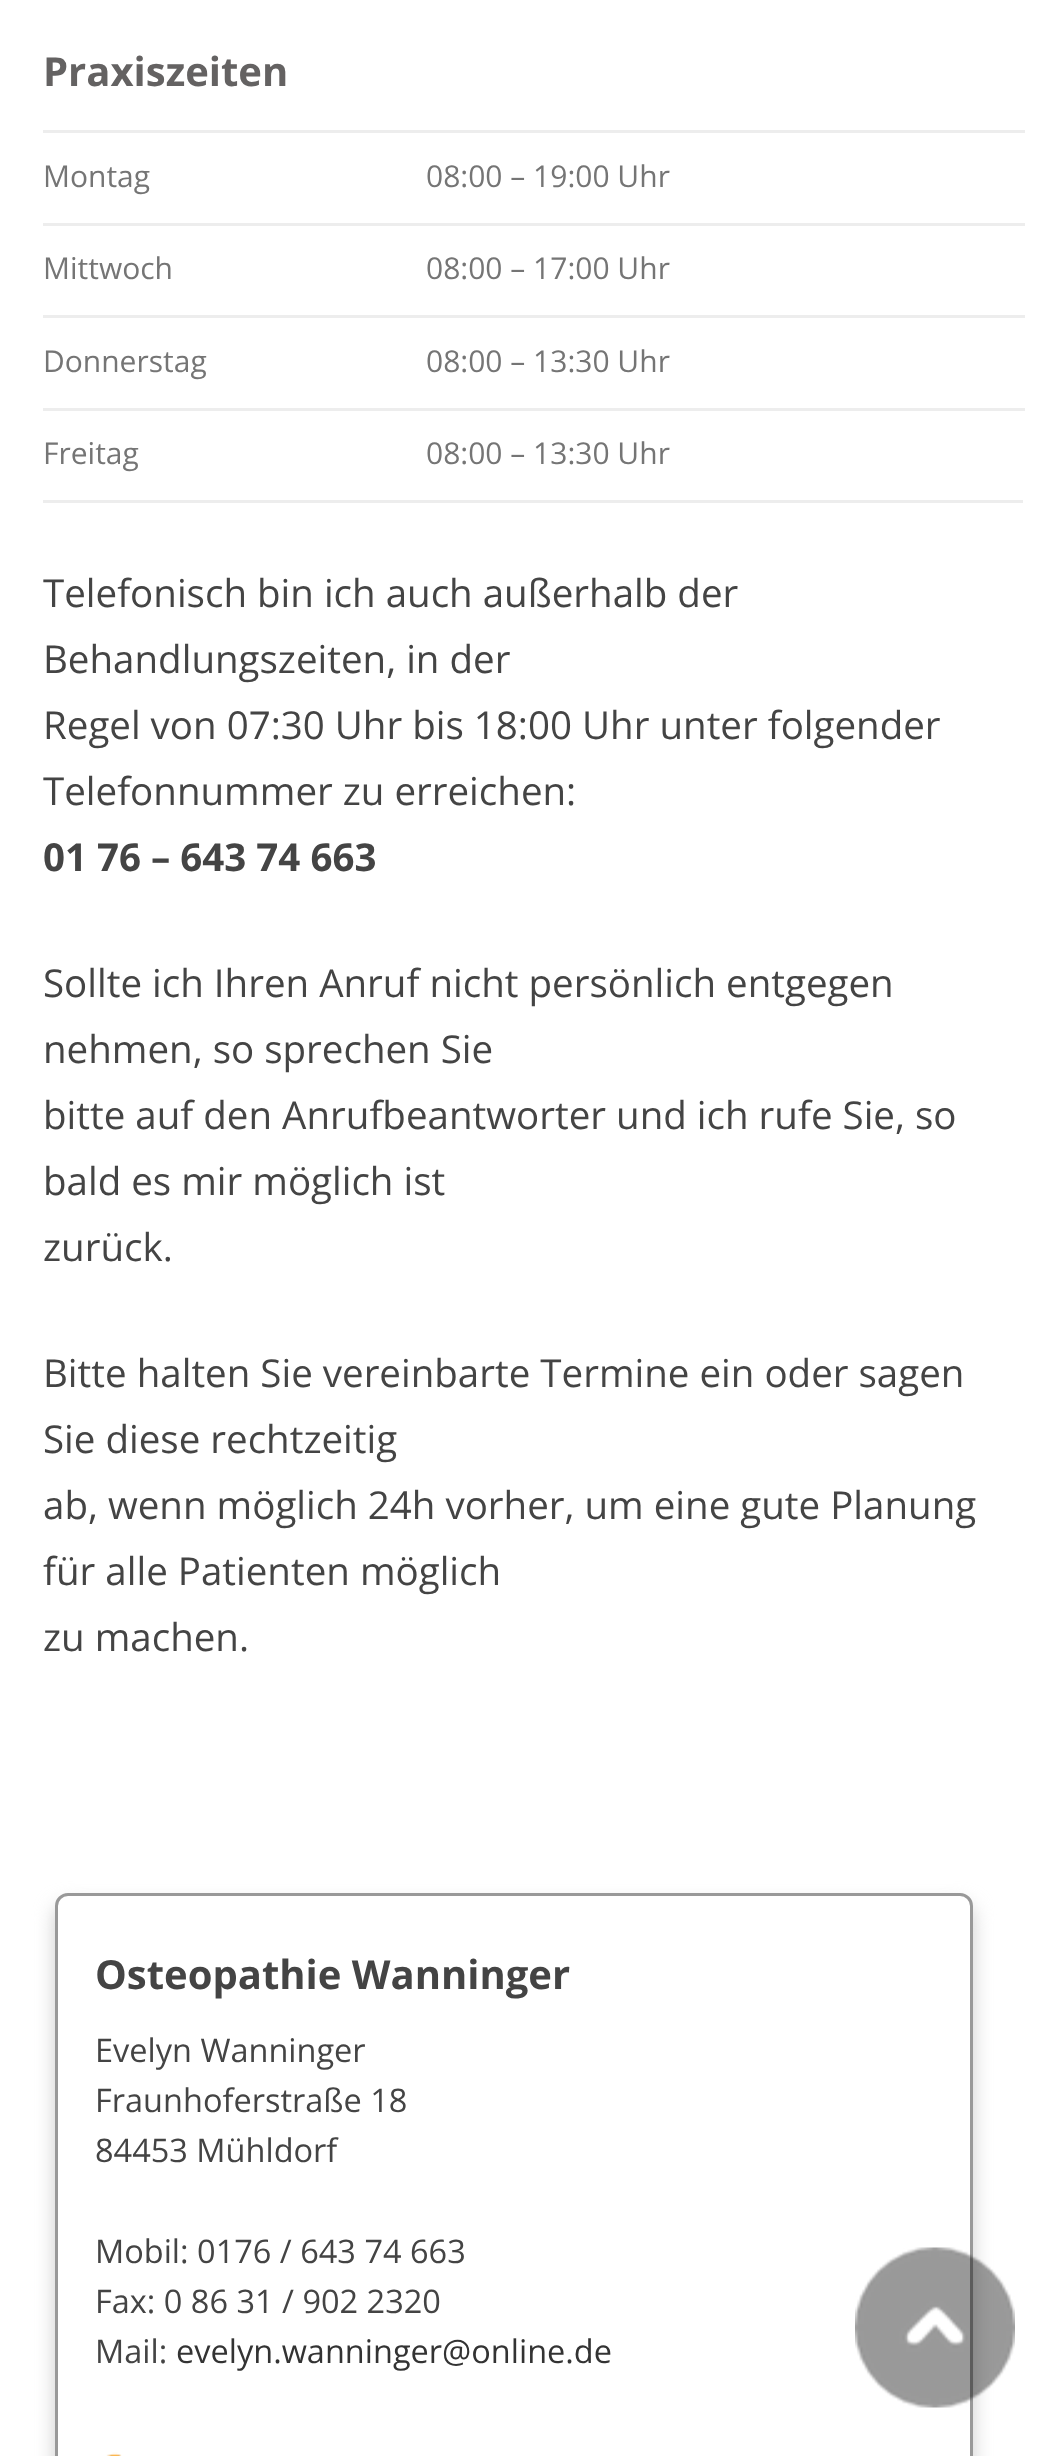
async function draw(canvas) {
	canvas.width = 1063;
	canvas.height = 2456;
	const c = canvas.getContext('2d');
	c.miterLimit = 4;
	c.fontKerning = 'normal';
	async function loadImage(src) {
		const img = new Image();
		img.src = src;
		await img.decode();
		return img;
	}

	c.fillStyle = '#fff';
	c.fillRect(0, 0, 1063, 2456);
	c.font = 'bold 40px Open Sans';
	c.fillStyle = '#646262';
	c.fillText('Praxiszeiten', 43, 86);
	c.fillStyle = '#ededed';
	c.fillRect(43, 500, 980, 3);
	c.font = '30px Open Sans';
	c.fillStyle = '#757575';
	c.fillText('Montag', 43, 187);
	c.fillStyle = '#ededed';
	c.fillRect(43, 130, 982, 3);
	c.fillStyle = '#757575';
	c.fillText('08:00 – 19:00 Uhr', 426, 187);
	c.fillText('Mittwoch', 43, 279);
	c.fillStyle = '#ededed';
	c.fillRect(43, 223, 982, 3);
	c.fillStyle = '#757575';
	c.fillText('08:00 – 17:00 Uhr', 426, 279);
	c.fillText('Donnerstag', 43, 372);
	c.fillStyle = '#ededed';
	c.fillRect(43, 315, 982, 3);
	c.fillStyle = '#757575';
	c.fillText('08:00 – 13:30 Uhr', 426, 372);
	c.fillText('Freitag', 43, 464);
	c.fillStyle = '#ededed';
	c.fillRect(43, 408, 982, 3);
	c.fillStyle = '#757575';
	c.fillText('08:00 – 13:30 Uhr', 426, 464);
	c.font = '38.5px Open Sans';
	c.fillStyle = '#444';
	for (const [text, x, y] of [
		['Telefonisch bin ich auch außerhalb der', 43, 607],
		['Behandlungszeiten, in der', 43, 673],
		['Regel von 07:30 Uhr bis 18:00 Uhr unter folgender', 43, 739],
		['Telefonnummer zu erreichen:', 43, 805],
	]) {
		c.fillText(text, x, y);
	}
	c.font = 'bold 38.5px Open Sans';
	c.fillText('01 76 – 643 74 663', 43, 871);
	c.font = '38.5px Open Sans';
	for (const [text, x, y] of [
		['Sollte ich Ihren Anruf nicht persönlich entgegen', 43, 997],
		['nehmen, so sprechen Sie', 43, 1063],
		['bitte auf den Anrufbeantworter und ich rufe Sie, so', 43, 1129],
		['bald es mir möglich ist', 43, 1195],
		['zurück.', 43, 1261],
		['Bitte halten Sie vereinbarte Termine ein oder sagen', 43, 1387],
		['Sie diese rechtzeitig', 43, 1453],
		['ab, wenn möglich 24h vorher, um eine gute Planung', 43, 1519],
		['für alle Patienten möglich', 43, 1585],
		['zu machen.', 43, 1651],
	]) {
		c.fillText(text, x, y);
	}
	c.fillStyle = '#ccc';
	c.filter = 'blur(10px)';
	c.beginPath();
	c.roundRect(55, 1905, 918, 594, 13);
	c.fill();
	c.filter = 'none';
	c.fillStyle = '#fff';
	c.beginPath();
	c.roundRect(56.5, 1894.5, 915, 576, 11.5);
	c.fill();
	c.strokeStyle = '#999';
	c.lineWidth = 3;
	c.stroke();
	c.font = 'bold 40px Open Sans';
	c.fillStyle = '#444';
	c.fillText('Osteopathie Wanninger', 95, 1989);
	c.font = '32.5px Open Sans';
	for (const [text, x, y] of [
		['Evelyn Wanninger', 95, 2062],
		['Fraunhoferstraße 18', 95, 2112],
		['84453 Mühldorf', 95, 2162],
		['Mobil: 0176 / 643 74 663', 95, 2263],
		['Fax: 0 86 31 / 902 2320', 95, 2313],
		['Mail:', 95, 2363],
	]) {
		c.fillText(text, x, y);
	}
	c.fillStyle = '#333';
	c.fillText('evelyn.wanninger@online.de', 176, 2363);
	c.drawImage(await loadImage('img1.png'), 106, 2452, 16, 4);
	c.drawImage(await loadImage('img2.png'), 855, 2247, 160, 161);
}

draw(document.querySelector('canvas'));
